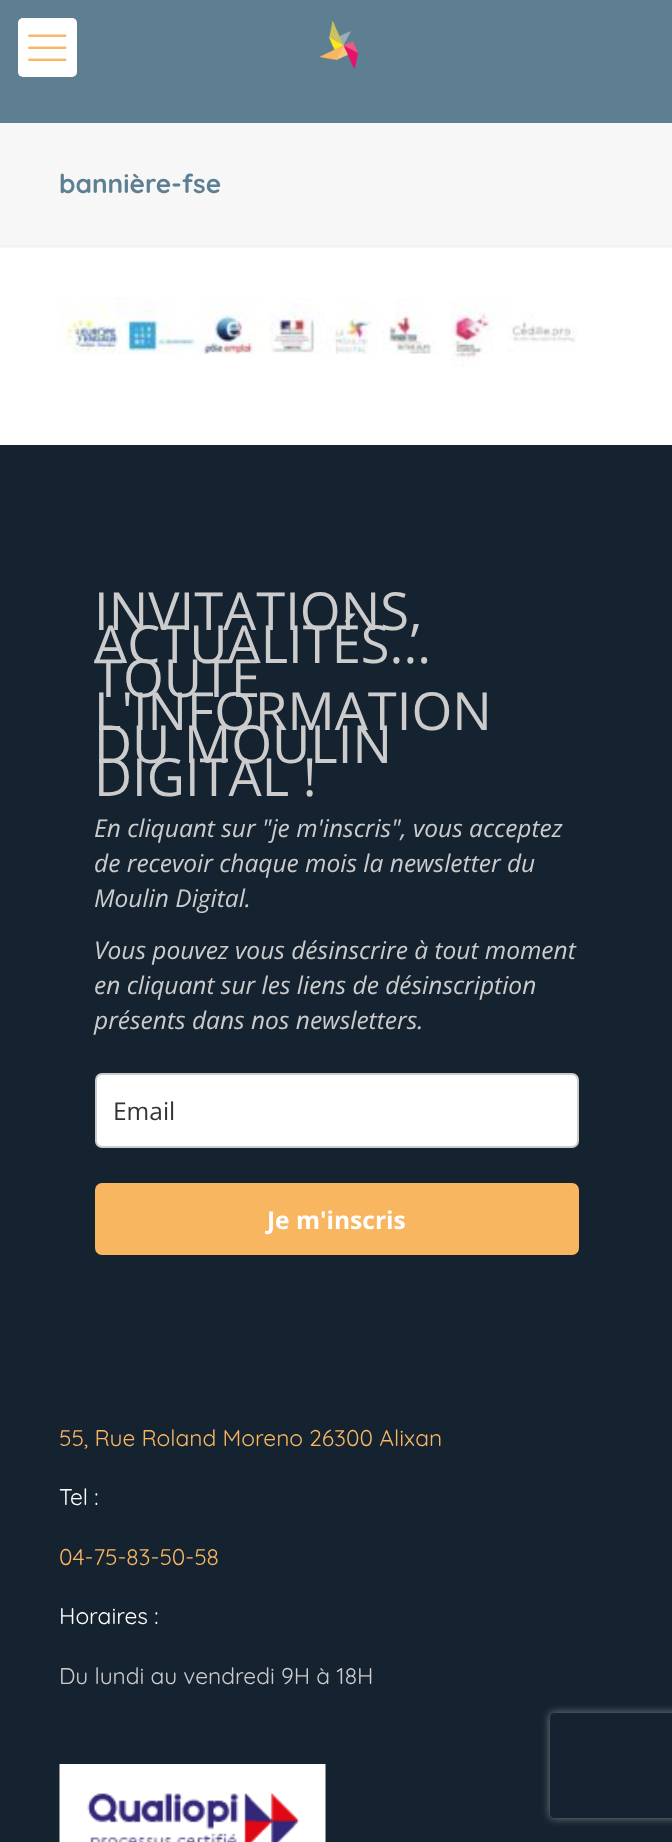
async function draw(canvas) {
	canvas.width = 672;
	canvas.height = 1842;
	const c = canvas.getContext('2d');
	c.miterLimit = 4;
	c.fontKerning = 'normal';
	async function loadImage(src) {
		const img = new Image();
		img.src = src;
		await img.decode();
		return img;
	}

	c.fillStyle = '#fff';
	c.fillRect(0, 0, 672, 1842);
	c.fillStyle = '#5e7f92';
	c.fillRect(0, 0, 672, 123);
	c.fillStyle = '#fff';
	c.beginPath();
	c.roundRect(18, 18, 59, 59, 5);
	c.fill();
	c.drawImage(await loadImage('img1.png'), 28, 34, 39, 27);
	c.drawImage(await loadImage('img2.png'), 319, 21, 40, 49);
	c.fillStyle = '#f7f7f7';
	c.fillRect(0, 123, 672, 122);
	c.font = 'bold 26.25px Quicksand';
	c.fillStyle = '#5e7f92';
	c.fillText('bannière-fse', 59, 193);
	c.drawImage(await loadImage('img3.png'), 0, 245, 672, 3);
	c.drawImage(await loadImage('img4.png'), 59, 297, 518, 70);
	c.fillStyle = '#152331';
	c.fillRect(0, 445, 672, 1397);
	c.font = '52.5px Open Sans';
	c.fillStyle = '#ccc';
	for (const [text, x, y] of [
		['INVITATIONS,', 94, 630],
		['ACTUALITÉS...', 94, 663],
		['TOUTE', 94, 697],
		['L\'INFORMATION', 94, 730],
		['DU MOULIN', 94, 763],
		['DIGITAL !', 94, 796],
	]) {
		c.fillText(text, x, y);
	}
	c.font = 'italic 24.5px Open Sans';
	for (const [text, x, y] of [
		['En cliquant sur "je m\'inscris", vous acceptez', 94, 837],
		['de recevoir chaque mois la newsletter du', 94, 872],
		['Moulin Digital.', 94, 907],
		['Vous pouvez vous désinscrire à tout moment', 94, 959],
		['en cliquant sur les liens de désinscription', 94, 994],
		['présents dans nos newsletters.', 94, 1029],
	]) {
		c.fillText(text, x, y);
	}
	c.fillStyle = '#fff';
	c.beginPath();
	c.roundRect(96, 1074, 482, 73, 6);
	c.fill();
	c.strokeStyle = '#ccc';
	c.lineWidth = 2;
	c.stroke();
	c.font = '24.5px Open Sans';
	c.fillStyle = '#333';
	c.fillText('Email', 113, 1120);
	c.fillStyle = '#f9b661';
	c.beginPath();
	c.roundRect(95, 1183, 484, 72, 7);
	c.fill();
	c.font = 'bold 24.5px Open Sans';
	c.fillStyle = '#fff';
	c.fillText('Je m\'inscris', 267, 1229);
	c.font = '22.75px Quicksand';
	c.fillStyle = '#f9b661';
	c.fillText('55, Rue Roland Moreno 26300 Alixan', 59, 1446);
	c.fillStyle = '#fff';
	c.fillText('Tel :', 59, 1505);
	c.fillStyle = '#f9b661';
	c.fillText('04-75-83-50-58', 59, 1565);
	c.fillStyle = '#fff';
	c.fillText('Horaires :', 59, 1624);
	c.fillStyle = '#ccc';
	c.fillText('Du lundi au vendredi 9H à 18H', 59, 1684);
	c.drawImage(await loadImage('img5.png'), 59, 1764, 267, 78);
	c.save();
	c.beginPath();
	c.moveTo(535, 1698);
	c.lineTo(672, 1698);
	c.lineTo(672, 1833);
	c.lineTo(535, 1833);
	c.closePath();
	c.moveTo(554, 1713);
	c.lineTo(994, 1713);
	c.bezierCurveTo(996, 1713, 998, 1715, 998, 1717);
	c.lineTo(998, 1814);
	c.bezierCurveTo(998, 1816, 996, 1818, 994, 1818);
	c.lineTo(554, 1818);
	c.bezierCurveTo(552, 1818, 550, 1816, 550, 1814);
	c.lineTo(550, 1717);
	c.bezierCurveTo(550, 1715, 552, 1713, 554, 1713);
	c.closePath();
	c.clip('evenodd');
	c.fillStyle = '#808080';
	c.filter = 'blur(4.5px)';
	c.beginPath();
	c.roundRect(550, 1713, 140, 105, 4);
	c.fill();
	c.filter = 'none';
	c.restore();
}

draw(document.querySelector('canvas'));
